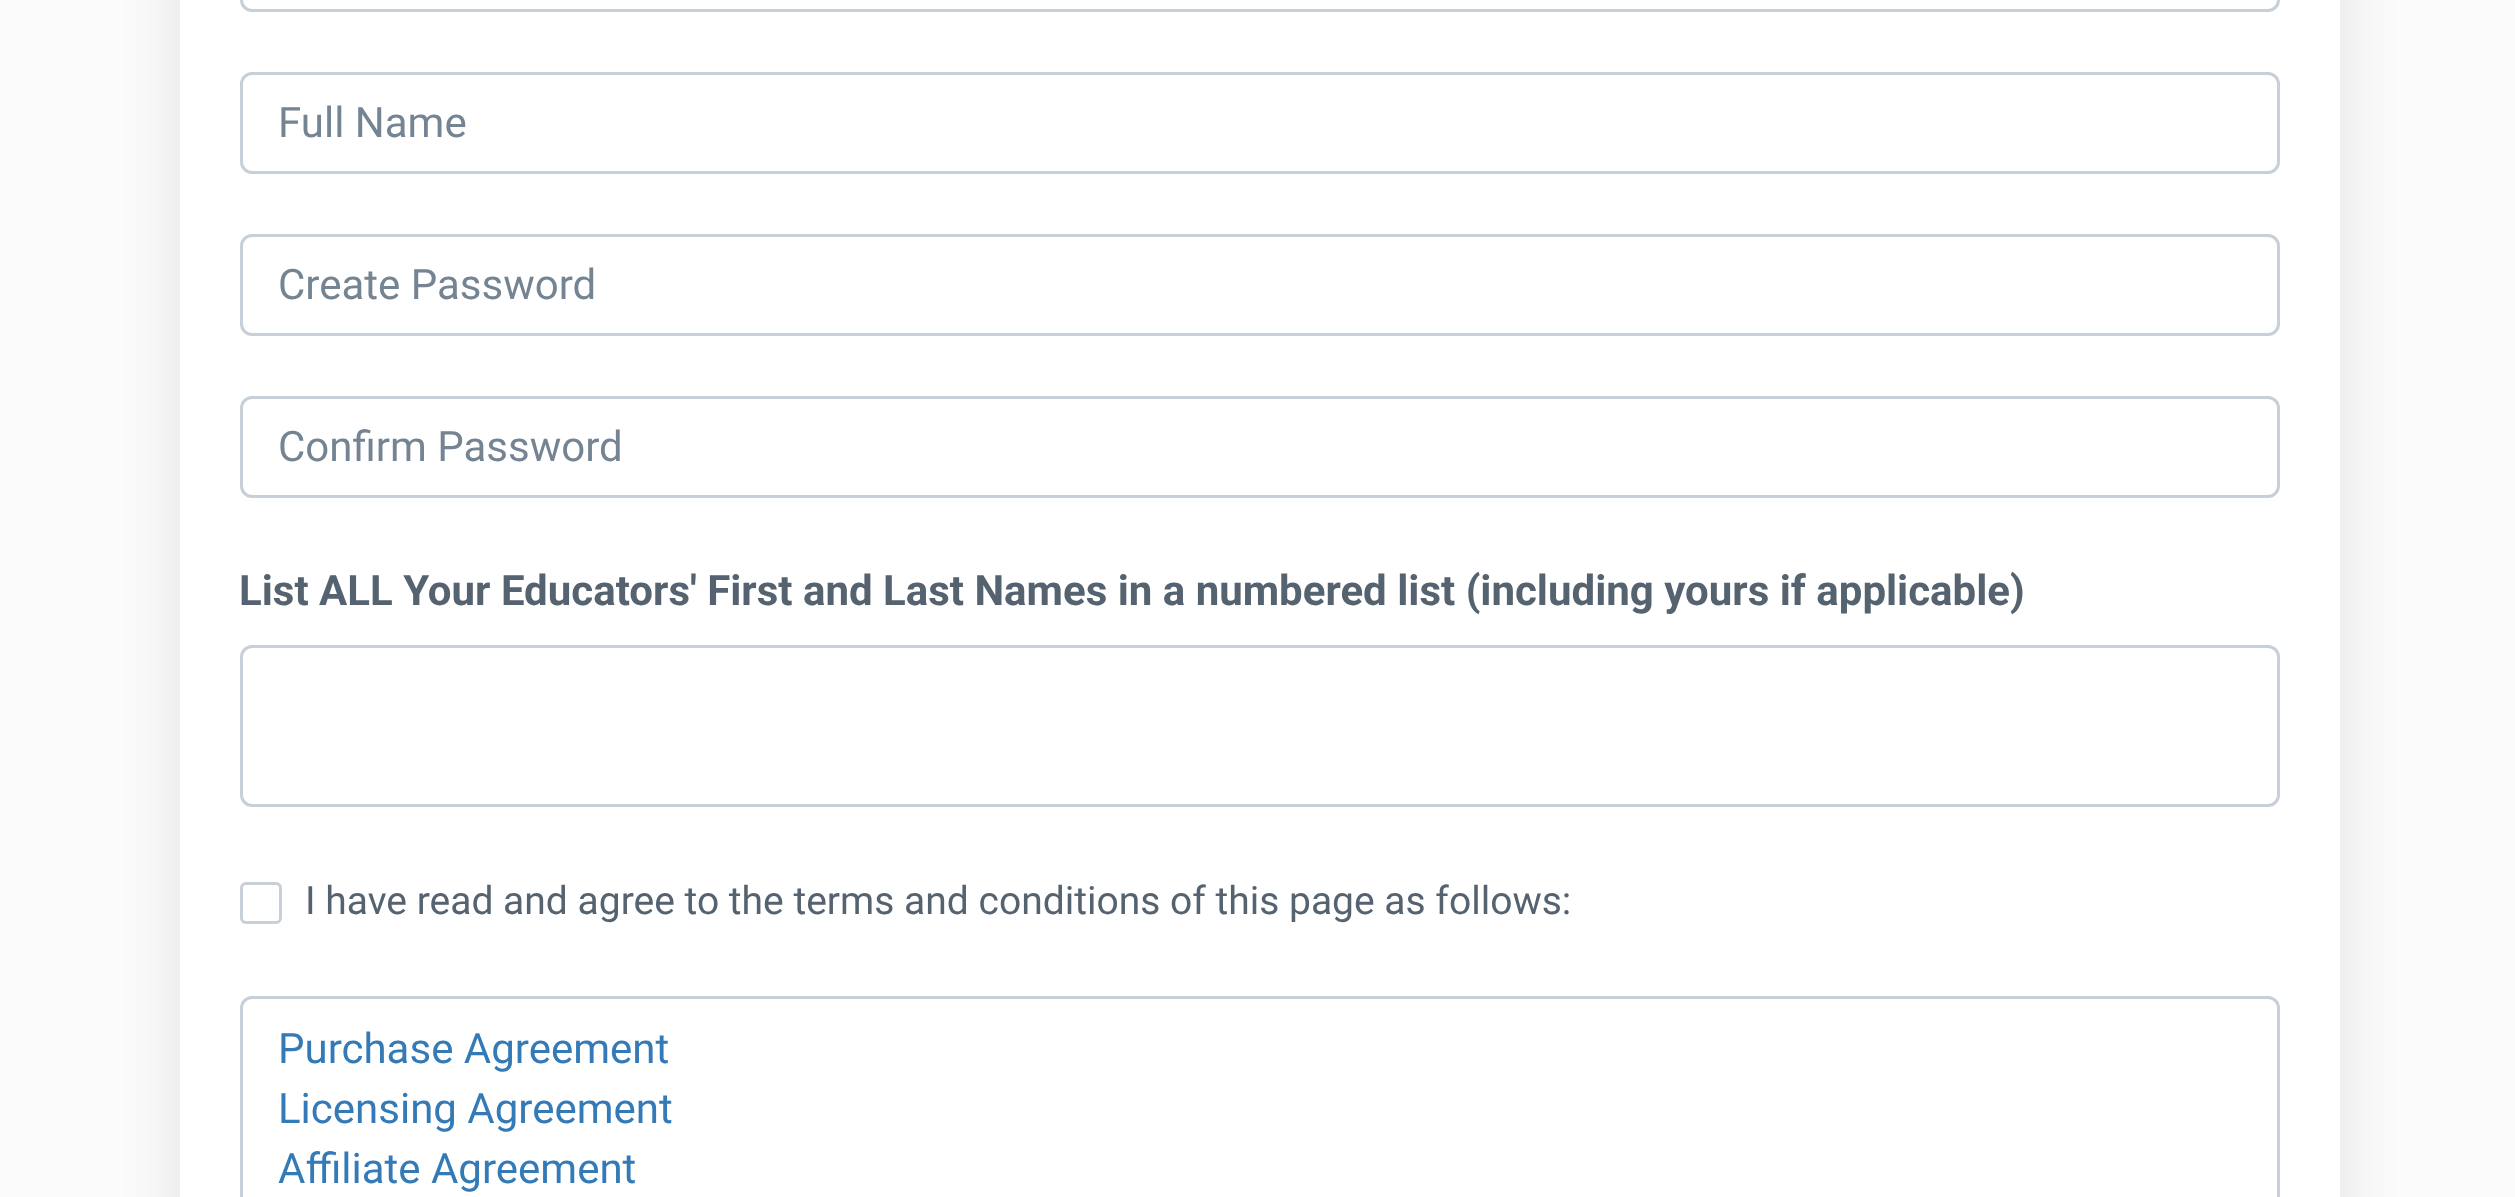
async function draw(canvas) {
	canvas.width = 2515;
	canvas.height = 1197;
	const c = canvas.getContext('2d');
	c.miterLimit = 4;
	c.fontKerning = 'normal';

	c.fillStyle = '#fbfbfb';
	c.fillRect(0, 0, 2515, 1197);
	c.fillStyle = '#0000001a';
	c.filter = 'blur(30px)';
	c.beginPath();
	c.roundRect(180, -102, 2160, 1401, 12);
	c.fill();
	c.filter = 'none';
	c.fillStyle = '#fff';
	c.fillRect(180, 0, 2160, 1197);
	c.beginPath();
	c.roundRect(241.5, -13.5, 2037, 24, 10.5);
	c.strokeStyle = '#c7cfd8';
	c.lineWidth = 3;
	c.stroke();
	c.beginPath();
	c.roundRect(241.5, 73.5, 2037, 99, 10.5);
	c.stroke();
	c.font = '42px Roboto';
	c.fillStyle = '#748493';
	c.fillText('Full Name', 278, 137);
	c.beginPath();
	c.roundRect(241.5, 235.5, 2037, 99, 10.5);
	c.stroke();
	c.fillText('Create Password', 278, 299);
	c.beginPath();
	c.roundRect(241.5, 397.5, 2037, 99, 10.5);
	c.stroke();
	c.fillText('Confirm Password', 278, 461);
	c.font = 'bold 42px Roboto';
	c.fillStyle = '#556370';
	c.fillText('List ALL Your Educators\' First and Last Names in a numbered list (including yours if applicable)', 239, 605);
	c.beginPath();
	c.roundRect(241.5, 646.5, 2037, 159, 10.5);
	c.stroke();
	c.beginPath();
	c.roundRect(241.5, 883.5, 39, 39, 4.5);
	c.stroke();
	c.font = '39px Roboto';
	c.fillText('I have read and agree to the terms and conditions of this page as follows:', 305, 914);
	c.beginPath();
	c.roundRect(241.5, 997.5, 2037, 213, 10.5);
	c.stroke();
	c.font = '42px Roboto';
	c.fillStyle = '#337ab7';
	for (const [text, x, y] of [
		['Purchase Agreement', 278, 1063],
		['Licensing Agreement', 278, 1123],
		['Affiliate Agreement', 278, 1183],
	]) {
		c.fillText(text, x, y);
	}
}

draw(document.querySelector('canvas'));
